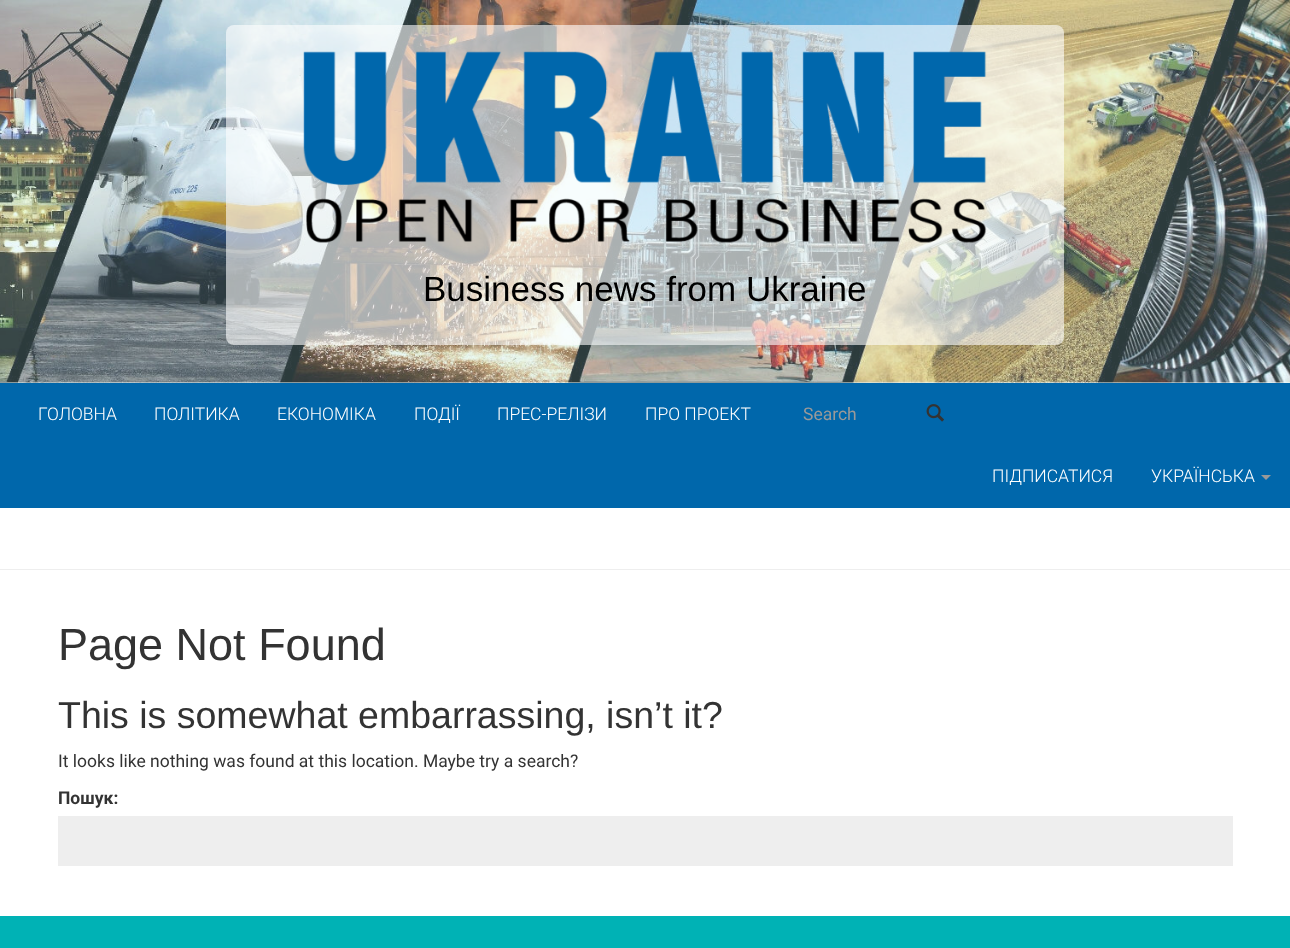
async function draw(canvas) {
	canvas.width = 1290;
	canvas.height = 948;
	const c = canvas.getContext('2d');
	c.miterLimit = 4;
	c.fontKerning = 'normal';
	async function loadImage(src) {
		const img = new Image();
		img.src = src;
		await img.decode();
		return img;
	}

	c.fillStyle = '#fff';
	c.fillRect(0, 0, 1290, 948);
	c.fillStyle = '#ecfafc';
	c.fillRect(0, 382, 1290, 1);
	c.drawImage(await loadImage('img1.png'), 0, 0, 1290, 383);
	c.fillStyle = '#ffffff99';
	c.beginPath();
	c.roundRect(226, 25, 838, 320, 8);
	c.fill();
	c.drawImage(await loadImage('img2.png'), 303, 51, 684, 192);
	c.font = '35px Liberation Sans';
	c.fillStyle = '#000';
	c.fillText('Business news from Ukraine', 423, 301);
	c.fillStyle = '#0067ab';
	c.fillRect(0, 383, 1290, 125);
	c.font = '300 17.5px Roboto';
	c.fillStyle = '#fff';
	for (const [text, x, y] of [
		['ГОЛОВНА', 38, 420],
		['ПОЛІТИКА', 154, 420],
		['ЕКОНОМІКА', 277, 420],
		['ПОДІЇ', 414, 420],
		['ПРЕС-РЕЛІЗИ', 497, 420],
		['ПРО ПРОЕКТ', 645, 420],
	]) {
		c.fillText(text, x, y);
	}
	c.font = '17.5px Roboto';
	c.fillStyle = '#999';
	c.fillText('Search', 803, 420);
	c.drawImage(await loadImage('img3.png'), 926, 404, 18, 18);
	c.font = '300 17.5px Roboto';
	c.fillStyle = '#fff';
	c.fillText('ПІДПИСАТИСЯ', 992, 482);
	c.fillText('УКРАЇНСЬКА', 1151, 482);
	c.fillStyle = '#999';
	c.beginPath();
	c.moveTo(1261, 475);
	c.lineTo(1271, 475);
	c.lineTo(1266, 480);
	c.closePath();
	c.fill();
	c.fillStyle = '#eee';
	c.fillRect(0, 569, 1290, 1);
	c.font = '45px Liberation Sans';
	c.fillStyle = '#333';
	c.fillText('Page Not Found', 58, 660);
	c.font = '37.5px Liberation Sans';
	c.fillText('This is somewhat embarrassing, isn’t it?', 58, 728);
	c.font = '17.5px Roboto';
	c.fillText('It looks like nothing was found at this location. Maybe try a search?', 58, 767);
	c.font = 'bold 17.5px Roboto';
	c.fillText('Пошук:', 58, 804);
	c.fillStyle = '#eee';
	c.fillRect(58, 816, 1175, 50);
	c.fillStyle = '#00b2b5';
	c.fillRect(0, 916, 1290, 32);
}

draw(document.querySelector('canvas'));
